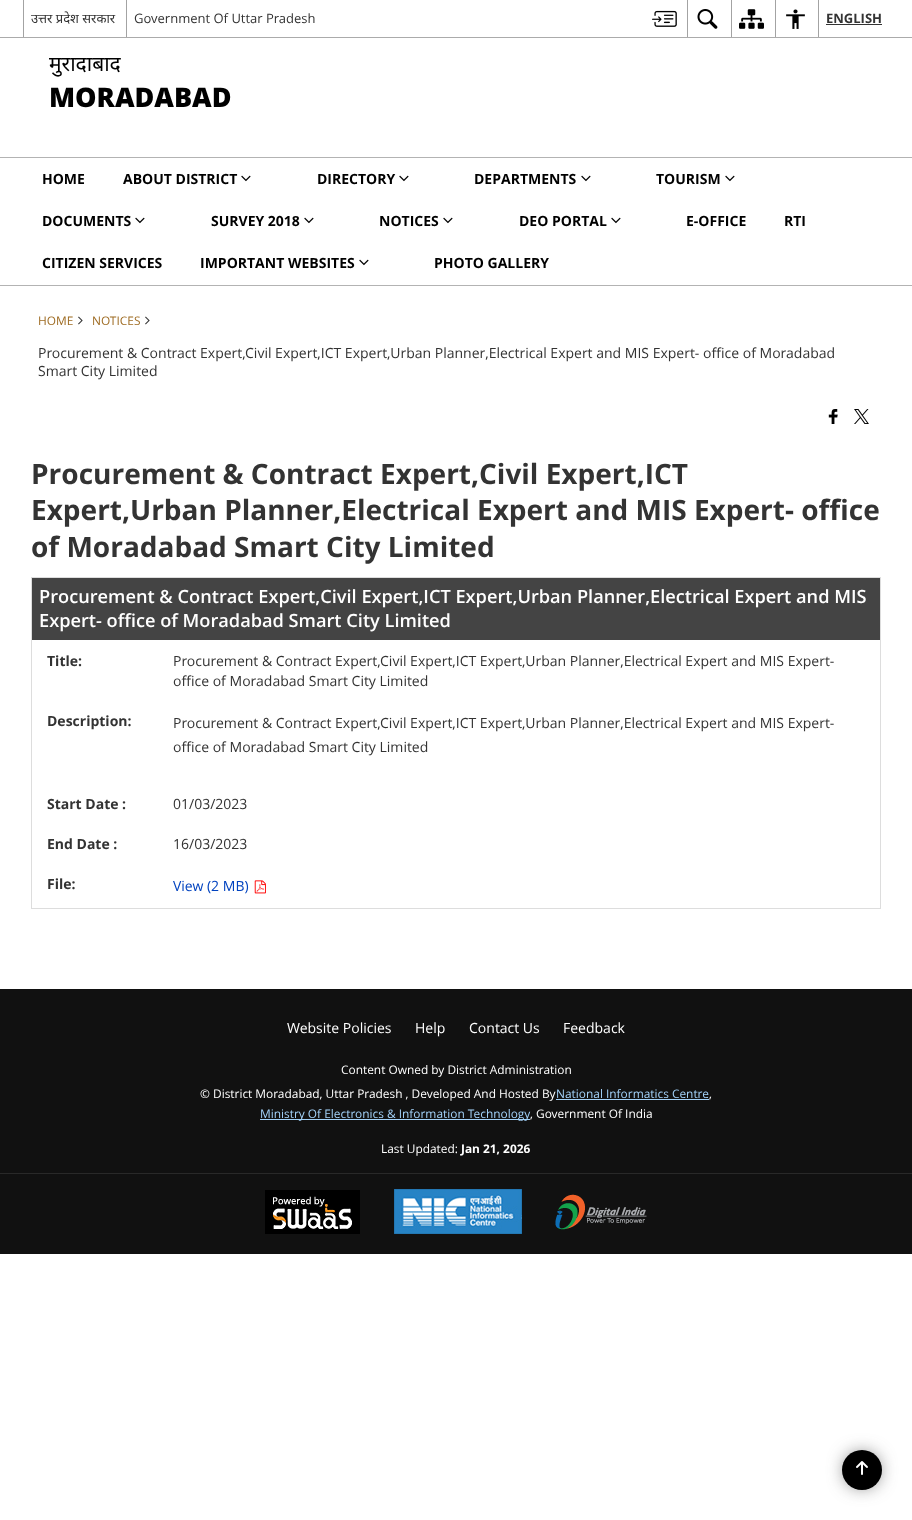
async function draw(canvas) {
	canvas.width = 912;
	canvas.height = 1520;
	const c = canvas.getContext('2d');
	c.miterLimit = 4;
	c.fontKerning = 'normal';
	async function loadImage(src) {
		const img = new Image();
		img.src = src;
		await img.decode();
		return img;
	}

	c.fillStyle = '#fff';
	c.fillRect(0, 0, 912, 1520);
	c.fillStyle = '#ababab';
	c.fillRect(0, 37, 912, 1);
	c.fillStyle = '#a3a3a3';
	c.fillRect(23, 0, 1, 37);
	c.font = '13px Noto Sans';
	c.fillStyle = '#333';
	c.fillText('उत्तर प्रदेश सरकार', 31, 23);
	c.fillStyle = '#a3a3a3';
	c.fillRect(126, 0, 1, 37);
	c.font = '13px Open Sans';
	c.fillStyle = '#333';
	c.fillText('Government Of Uttar Pradesh', 134, 23);
	c.drawImage(await loadImage('img1.png'), 652, 10, 25, 17);
	c.fillStyle = '#a3a3a3';
	c.fillRect(687, 0, 1, 37);
	c.drawImage(await loadImage('img2.png'), 697, 9, 21, 20);
	c.fillRect(731, 0, 1, 37);
	c.drawImage(await loadImage('img3.png'), 739, 9, 25, 20);
	c.fillRect(775, 0, 1, 37);
	c.drawImage(await loadImage('img4.png'), 786, 9, 19, 20);
	c.fillRect(818, 0, 1, 37);
	c.font = 'bold 13px Open Sans';
	c.fillStyle = '#333';
	c.fillText('ENGLISH', 826, 23);
	c.fillRect(826, 24, 56, 1);
	c.font = '21px Noto Sans';
	c.fillStyle = '#000';
	c.fillText('मुरादाबाद', 49, 71);
	c.font = '800 27px Open Sans';
	c.fillText('MORADABAD', 49, 107);
	c.fillStyle = '#b3b3b3';
	c.fillRect(0, 157, 912, 1);
	c.fillRect(0, 285, 912, 1);
	c.font = 'bold 14px Open Sans';
	c.fillStyle = '#000';
	c.fillText('HOME', 42, 184);
	c.fillText('ABOUT DISTRICT', 123, 184);
	c.drawImage(await loadImage('img5.png'), 241, 175, 10, 7);
	c.fillText('DIRECTORY', 317, 184);
	c.drawImage(await loadImage('img5.png'), 399, 175, 10, 7);
	c.fillText('DEPARTMENTS', 474, 184);
	c.drawImage(await loadImage('img5.png'), 581, 175, 10, 7);
	c.fillText('TOURISM', 656, 184);
	c.drawImage(await loadImage('img5.png'), 725, 175, 10, 7);
	c.fillText('DOCUMENTS', 42, 226);
	c.drawImage(await loadImage('img5.png'), 135, 217, 10, 7);
	c.fillText('SURVEY 2018', 211, 226);
	c.drawImage(await loadImage('img5.png'), 304, 217, 10, 7);
	c.fillText('NOTICES', 379, 226);
	c.drawImage(await loadImage('img5.png'), 443, 217, 10, 7);
	c.fillText('DEO PORTAL', 519, 226);
	c.drawImage(await loadImage('img5.png'), 611, 217, 10, 7);
	for (const [text, x, y] of [
		['E-OFFICE', 686, 226],
		['RTI', 784, 226],
		['CITIZEN SERVICES', 42, 268],
		['IMPORTANT WEBSITES', 200, 268],
	]) {
		c.fillText(text, x, y);
	}
	c.drawImage(await loadImage('img5.png'), 359, 259, 10, 7);
	c.fillText('PHOTO GALLERY', 434, 268);
	c.font = '11.9px Open Sans';
	c.fillStyle = '#9e6b22';
	c.fillText('HOME', 38, 325);
	c.drawImage(await loadImage('img6.png'), 78, 316, 5, 9);
	c.fillText('NOTICES', 92, 325);
	c.drawImage(await loadImage('img6.png'), 145, 316, 5, 9);
	c.font = '14px Open Sans';
	c.fillStyle = '#333';
	c.fillText('Procurement & Contract Expert,Civil Expert,ICT Expert,Urban Planner,Electrical Expert and MIS Expert- office of Moradabad', 38, 358);
	c.fillText('Smart City Limited', 38, 376);
	c.drawImage(await loadImage('img7.png'), 828, 409, 10, 15);
	c.drawImage(await loadImage('img8.png'), 854, 409, 15, 15);
	c.font = 'bold 28px Open Sans';
	for (const [text, x, y] of [
		['Procurement & Contract Expert,Civil Expert,ICT', 31, 484],
		['Expert,Urban Planner,Electrical Expert and MIS Expert- office', 31, 520],
		['of Moradabad Smart City Limited', 31, 557],
	]) {
		c.fillText(text, x, y);
	}
	for (const [x, y, w, h, color] of [
		[31, 577, 850, 1, '#ddd'],
		[880, 577, 1, 332, '#ddd'],
		[31, 908, 850, 1, '#ddd'],
		[31, 577, 1, 332, '#ddd'],
		[32, 578, 848, 62, '#444'],
	]) {
		c.fillStyle = color;
		c.fillRect(x, y, w, h);
	}
	c.font = '600 18.2px Open Sans';
	c.fillStyle = '#fff';
	c.fillText('Procurement & Contract Expert,Civil Expert,ICT Expert,Urban Planner,Electrical Expert and MIS', 39, 603);
	c.fillText('Expert- office of Moradabad Smart City Limited', 39, 627);
	c.font = 'bold 14px Open Sans';
	c.fillStyle = '#333';
	c.fillText('Title:', 47, 666);
	c.font = '14px Open Sans';
	c.fillText('Procurement & Contract Expert,Civil Expert,ICT Expert,Urban Planner,Electrical Expert and MIS Expert-', 173, 666);
	c.fillText('office of Moradabad Smart City Limited', 173, 686);
	c.font = 'bold 14px Open Sans';
	c.fillText('Description:', 47, 726);
	c.font = '14px Open Sans';
	c.fillText('Procurement & Contract Expert,Civil Expert,ICT Expert,Urban Planner,Electrical Expert and MIS Expert-', 173, 728);
	c.fillText('office of Moradabad Smart City Limited', 173, 752);
	c.font = 'bold 14px Open Sans';
	c.fillText('Start Date :', 47, 809);
	c.font = '14px Open Sans';
	c.fillText('01/03/2023', 173, 809);
	c.font = 'bold 14px Open Sans';
	c.fillText('End Date :', 47, 849);
	c.font = '14px Open Sans';
	c.fillText('16/03/2023', 173, 849);
	c.font = 'bold 14px Open Sans';
	c.fillText('File:', 47, 889);
	c.font = '14px Open Sans';
	c.fillStyle = '#0042bf';
	c.fillText('View (2 MB)', 173, 891);
	c.drawImage(await loadImage('img9.png'), 254, 880, 12, 14);
	c.fillStyle = '#111';
	c.fillRect(0, 989, 912, 265);
	c.fillStyle = '#fff';
	for (const [text, x, y] of [
		['Website Policies', 287, 1033],
		['Help', 415, 1033],
		['Contact Us', 469, 1033],
		['Feedback', 563, 1033],
	]) {
		c.fillText(text, x, y);
	}
	c.font = '11.9px Open Sans';
	c.fillText('Content Owned by District Administration', 341, 1074);
	c.fillText('© District Moradabad, Uttar Pradesh , Developed And Hosted By', 200, 1098);
	c.fillStyle = '#a3d2f9';
	c.fillText('National Informatics Centre', 556, 1098);
	c.fillRect(556, 1099, 153, 1);
	c.fillStyle = '#fff';
	c.fillText(',', 709, 1098);
	c.fillStyle = '#a3d2f9';
	c.fillRect(260, 1119, 270, 1);
	c.fillText('Ministry Of Electronics & Information Technology', 260, 1118);
	c.fillStyle = '#fff';
	c.fillText(', Government Of India', 530, 1118);
	c.fillText('Last Updated:', 381, 1153);
	c.font = 'bold 11.9px Open Sans';
	c.fillText('Jan 21, 2026', 461, 1153);
	c.fillStyle = '#292929';
	c.fillRect(0, 1173, 912, 1);
	c.drawImage(await loadImage('img10.png'), 265, 1190, 95, 44);
	c.drawImage(await loadImage('img11.png'), 394, 1189, 128, 45);
	c.drawImage(await loadImage('img12.png'), 555, 1194, 92, 36);
	c.fillStyle = '#3c3c3c';
	c.filter = 'blur(9.5px)';
	c.beginPath();
	c.roundRect(847, 1455, 30, 30, 15);
	c.fill();
	c.filter = 'none';
	c.fillStyle = '#000';
	c.beginPath();
	c.arc(862, 1470, 20, 0, 2 * Math.PI);
	c.fill();
	c.drawImage(await loadImage('img13.png'), 856, 1461, 12, 14);
}

draw(document.querySelector('canvas'));
